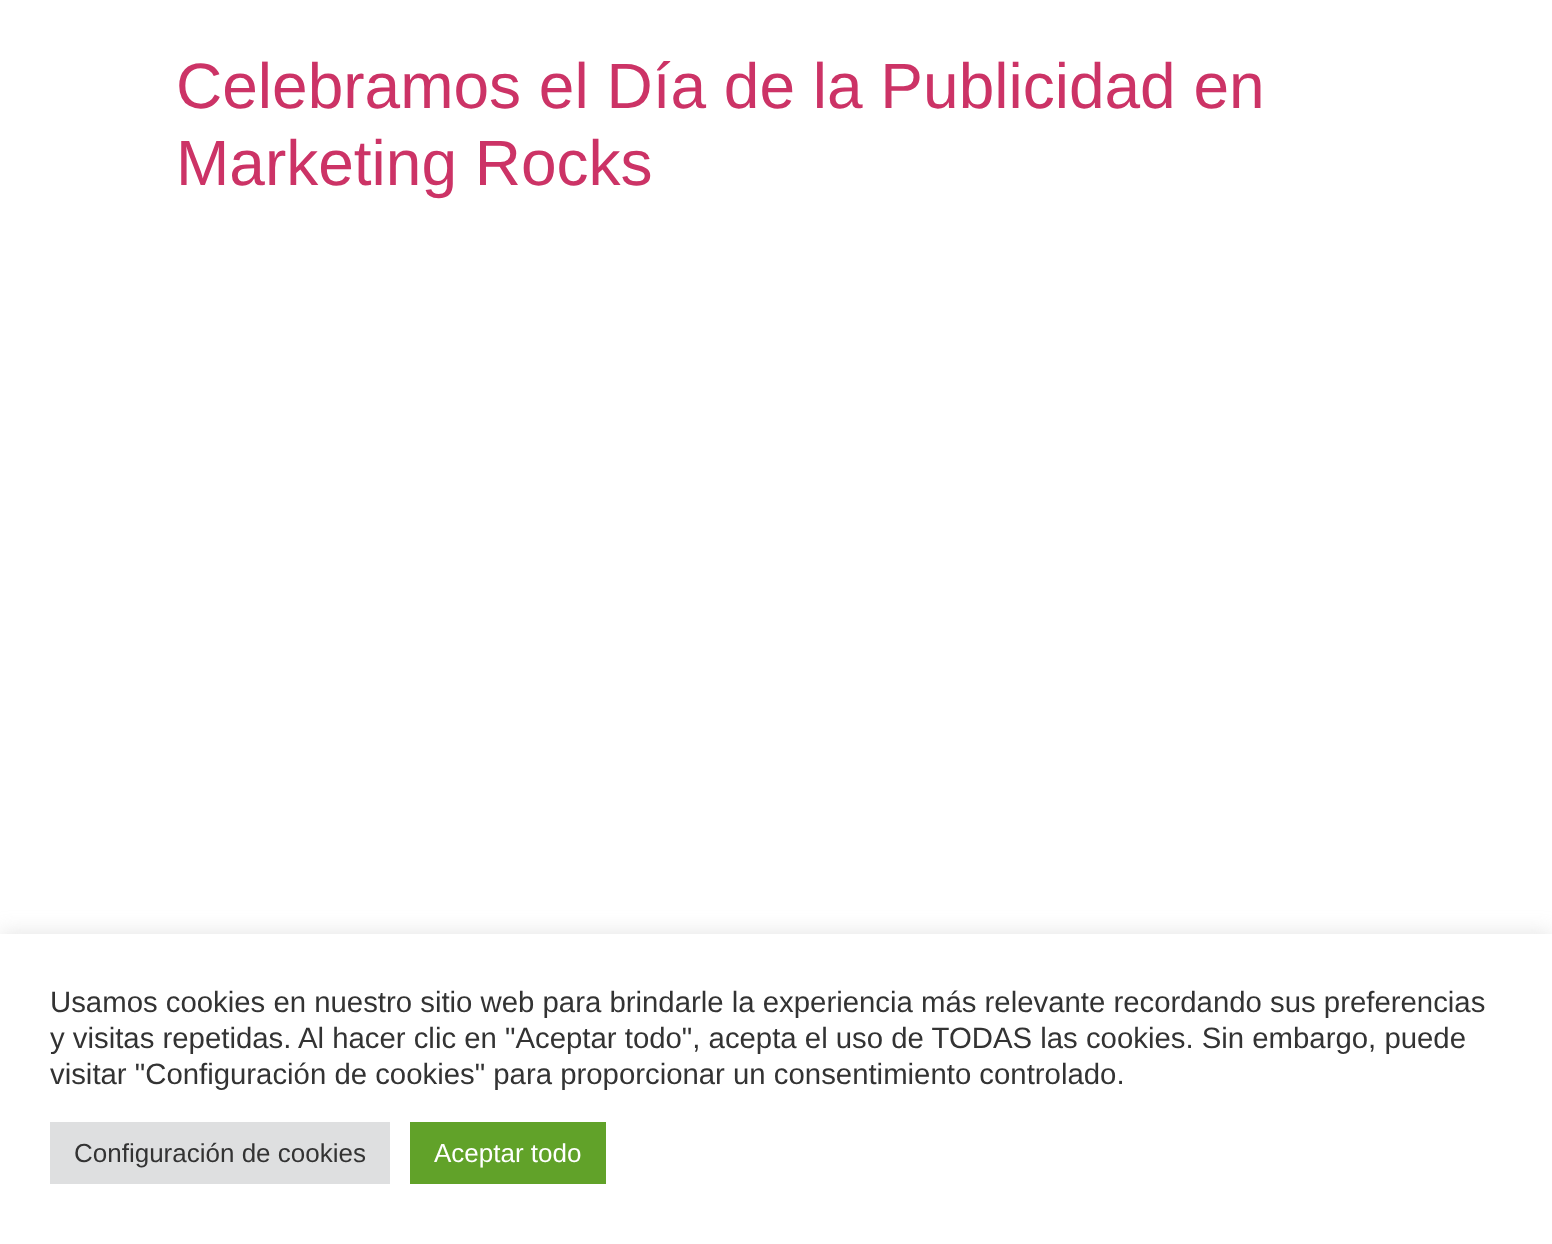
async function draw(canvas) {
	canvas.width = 1552;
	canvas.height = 1244;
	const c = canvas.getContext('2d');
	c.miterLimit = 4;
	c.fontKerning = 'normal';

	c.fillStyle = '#fff';
	c.fillRect(0, 0, 1552, 1244);
	c.font = '64px Liberation Sans';
	c.fillStyle = '#c36';
	c.fillText('Celebramos el Día de la Publicidad en', 176, 108);
	c.fillText('Marketing Rocks', 176, 185);
	c.fillStyle = '#acabab4d';
	c.filter = 'blur(10px)';
	c.beginPath();
	c.rect(0, 932, 1552, 310);
	c.fill();
	c.filter = 'none';
	c.fillStyle = '#fff';
	c.fillRect(0, 934, 1552, 310);
	c.font = '29.35px Liberation Sans';
	c.fillStyle = '#333';
	for (const [text, x, y] of [
		['Usamos cookies en nuestro sitio web para brindarle la experiencia más relevante recordando sus preferencias', 50, 1012],
		['y visitas repetidas. Al hacer clic en "Aceptar todo", acepta el uso de TODAS las cookies. Sin embargo, puede', 50, 1048],
		['visitar "Configuración de cookies" para proporcionar un consentimiento controlado.', 50, 1084],
	]) {
		c.fillText(text, x, y);
	}
	c.fillStyle = '#dedfe0';
	c.fillRect(50, 1122, 340, 62);
	c.font = '26px Liberation Sans';
	c.fillStyle = '#333';
	c.fillText('Configuración de cookies', 74, 1162);
	c.fillStyle = '#61a229';
	c.fillRect(410, 1122, 196, 62);
	c.fillStyle = '#fff';
	c.fillText('Aceptar todo', 434, 1162);
}

draw(document.querySelector('canvas'));
